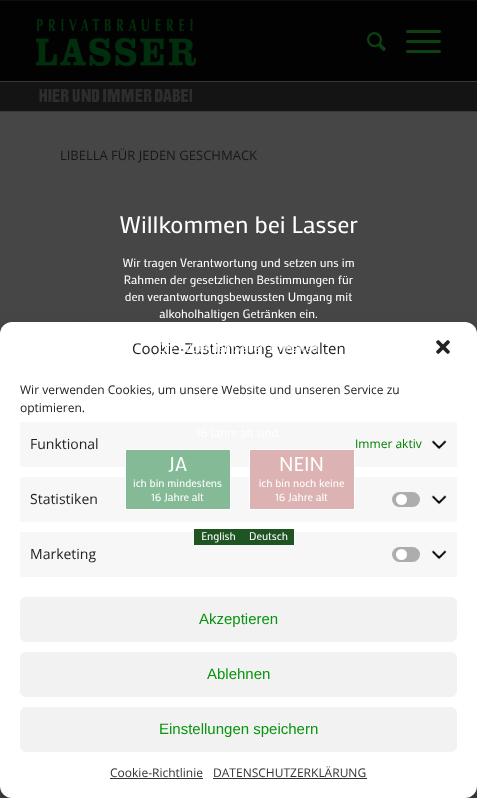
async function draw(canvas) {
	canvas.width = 477;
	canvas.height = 798;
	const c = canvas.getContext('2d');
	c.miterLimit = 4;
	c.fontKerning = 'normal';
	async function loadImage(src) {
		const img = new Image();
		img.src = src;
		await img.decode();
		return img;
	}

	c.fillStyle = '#141414';
	c.fillRect(0, 0, 477, 798);
	for (const [x, y, w, h, color] of [
		[0, 0, 477, 1, '#0d0d0d'],
		[0, 81, 477, 1, '#393939'],
		[0, 1, 477, 80, '#020202'],
	]) {
		c.fillStyle = color;
		c.fillRect(x, y, w, h);
	}
	c.drawImage(await loadImage('img1.png'), 36, 19, 160, 47);
	c.drawImage(await loadImage('img2.png'), 367, 32, 19, 20);
	c.fillStyle = '#0e4010';
	c.beginPath();
	c.roundRect(406, 40, 35, 3, 1.5);
	c.fill();
	c.beginPath();
	c.roundRect(406, 30, 35, 3, 1.5);
	c.fill();
	c.beginPath();
	c.roundRect(406, 50, 35, 3, 1.5);
	c.fill();
	c.fillStyle = '#393939';
	c.fillRect(0, 111, 477, 1);
	c.drawImage(await loadImage('img3.png'), 39, 89, 154, 13);
	c.fillStyle = '#464646';
	c.fillRect(0, 112, 477, 686);
	c.font = '13px Open Sans';
	c.fillStyle = '#171717';
	c.fillText('LIBELLA FÜR JEDEN GESCHMACK', 60, 160);
	c.drawImage(await loadImage('img4.png'), 78, 320, 4, 2);
	c.fillStyle = '#0000003b';
	c.filter = 'blur(3px)';
	c.beginPath();
	c.roundRect(0, 328, 477, 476, 12);
	c.fill();
	c.filter = 'none';
	c.fillStyle = '#00000030';
	c.filter = 'blur(10px)';
	c.beginPath();
	c.roundRect(0, 332, 477, 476, 12);
	c.fill();
	c.filter = 'none';
	c.fillStyle = '#fff';
	c.beginPath();
	c.roundRect(0, 322, 477, 476, 12);
	c.fill();
	c.font = '15px Open Sans';
	c.fillStyle = '#222';
	c.fillText('Cookie-Zustimmung verwalten', 132, 354);
	c.font = '12px Open Sans';
	c.fillText('Wir verwenden Cookies, um unsere Website und unseren Service zu', 20, 394);
	c.fillStyle = '#f7f7f7';
	c.fillRect(20, 422, 437, 45);
	c.fillStyle = '#008000';
	c.fillText('Immer aktiv', 355, 448);
	c.fillStyle = '#f7f7f7';
	c.fillRect(20, 477, 437, 45);
	c.fillRect(20, 532, 437, 45);
	c.drawImage(await loadImage('img5.png'), 120, 216, 238, 329);
	c.drawImage(await loadImage('img6.png'), 436, 340, 14, 14);
	c.fillStyle = '#222';
	c.fillText('optimieren.', 20, 412);
	c.font = '14px Open Sans';
	c.fillText('Funktional', 30, 449);
	c.drawImage(await loadImage('img7.png'), 431, 440, 16, 10);
	c.fillText('Statistiken', 30, 504);
	c.fillStyle = '#adadad';
	c.beginPath();
	c.roundRect(392, 492, 28, 15, 7.5);
	c.fill();
	c.fillStyle = '#fff';
	c.beginPath();
	c.arc(401.5, 499.5, 5.5, 0, 2 * Math.PI);
	c.fill();
	c.drawImage(await loadImage('img8.png'), 431, 495, 16, 10);
	c.fillStyle = '#222';
	c.fillText('Marketing', 30, 559);
	c.fillStyle = '#adadad';
	c.beginPath();
	c.roundRect(392, 547, 28, 15, 7.5);
	c.fill();
	c.fillStyle = '#fff';
	c.beginPath();
	c.arc(401.5, 554.5, 5.5, 0, 2 * Math.PI);
	c.fill();
	c.drawImage(await loadImage('img8.png'), 431, 550, 16, 10);
	c.fillStyle = '#f2f2f2';
	c.beginPath();
	c.roundRect(20.5, 597.5, 436, 44, 5.5);
	c.fill();
	c.strokeStyle = '#f2f2f2';
	c.stroke();
	c.font = '15px Liberation Sans';
	c.fillStyle = '#099410';
	c.fillText('Akzeptieren', 199, 624);
	c.fillStyle = '#f2f2f2';
	c.beginPath();
	c.roundRect(20.5, 652.5, 436, 44, 5.5);
	c.fill();
	c.stroke();
	c.fillStyle = '#099410';
	c.fillText('Ablehnen', 207, 679);
	c.fillStyle = '#f2f2f2';
	c.beginPath();
	c.roundRect(20.5, 707.5, 436, 44, 5.5);
	c.fill();
	c.stroke();
	c.fillStyle = '#099410';
	c.fillText('Einstellungen speichern', 159, 734);
	c.font = '12px Open Sans';
	c.fillStyle = '#333';
	c.fillText('Cookie-Richtlinie', 110, 777);
	c.fillRect(110, 778, 93, 1);
	c.fillText('DATENSCHUTZERKLÄRUNG', 213, 777);
	c.fillRect(213, 778, 154, 1);
}

draw(document.querySelector('canvas'));
